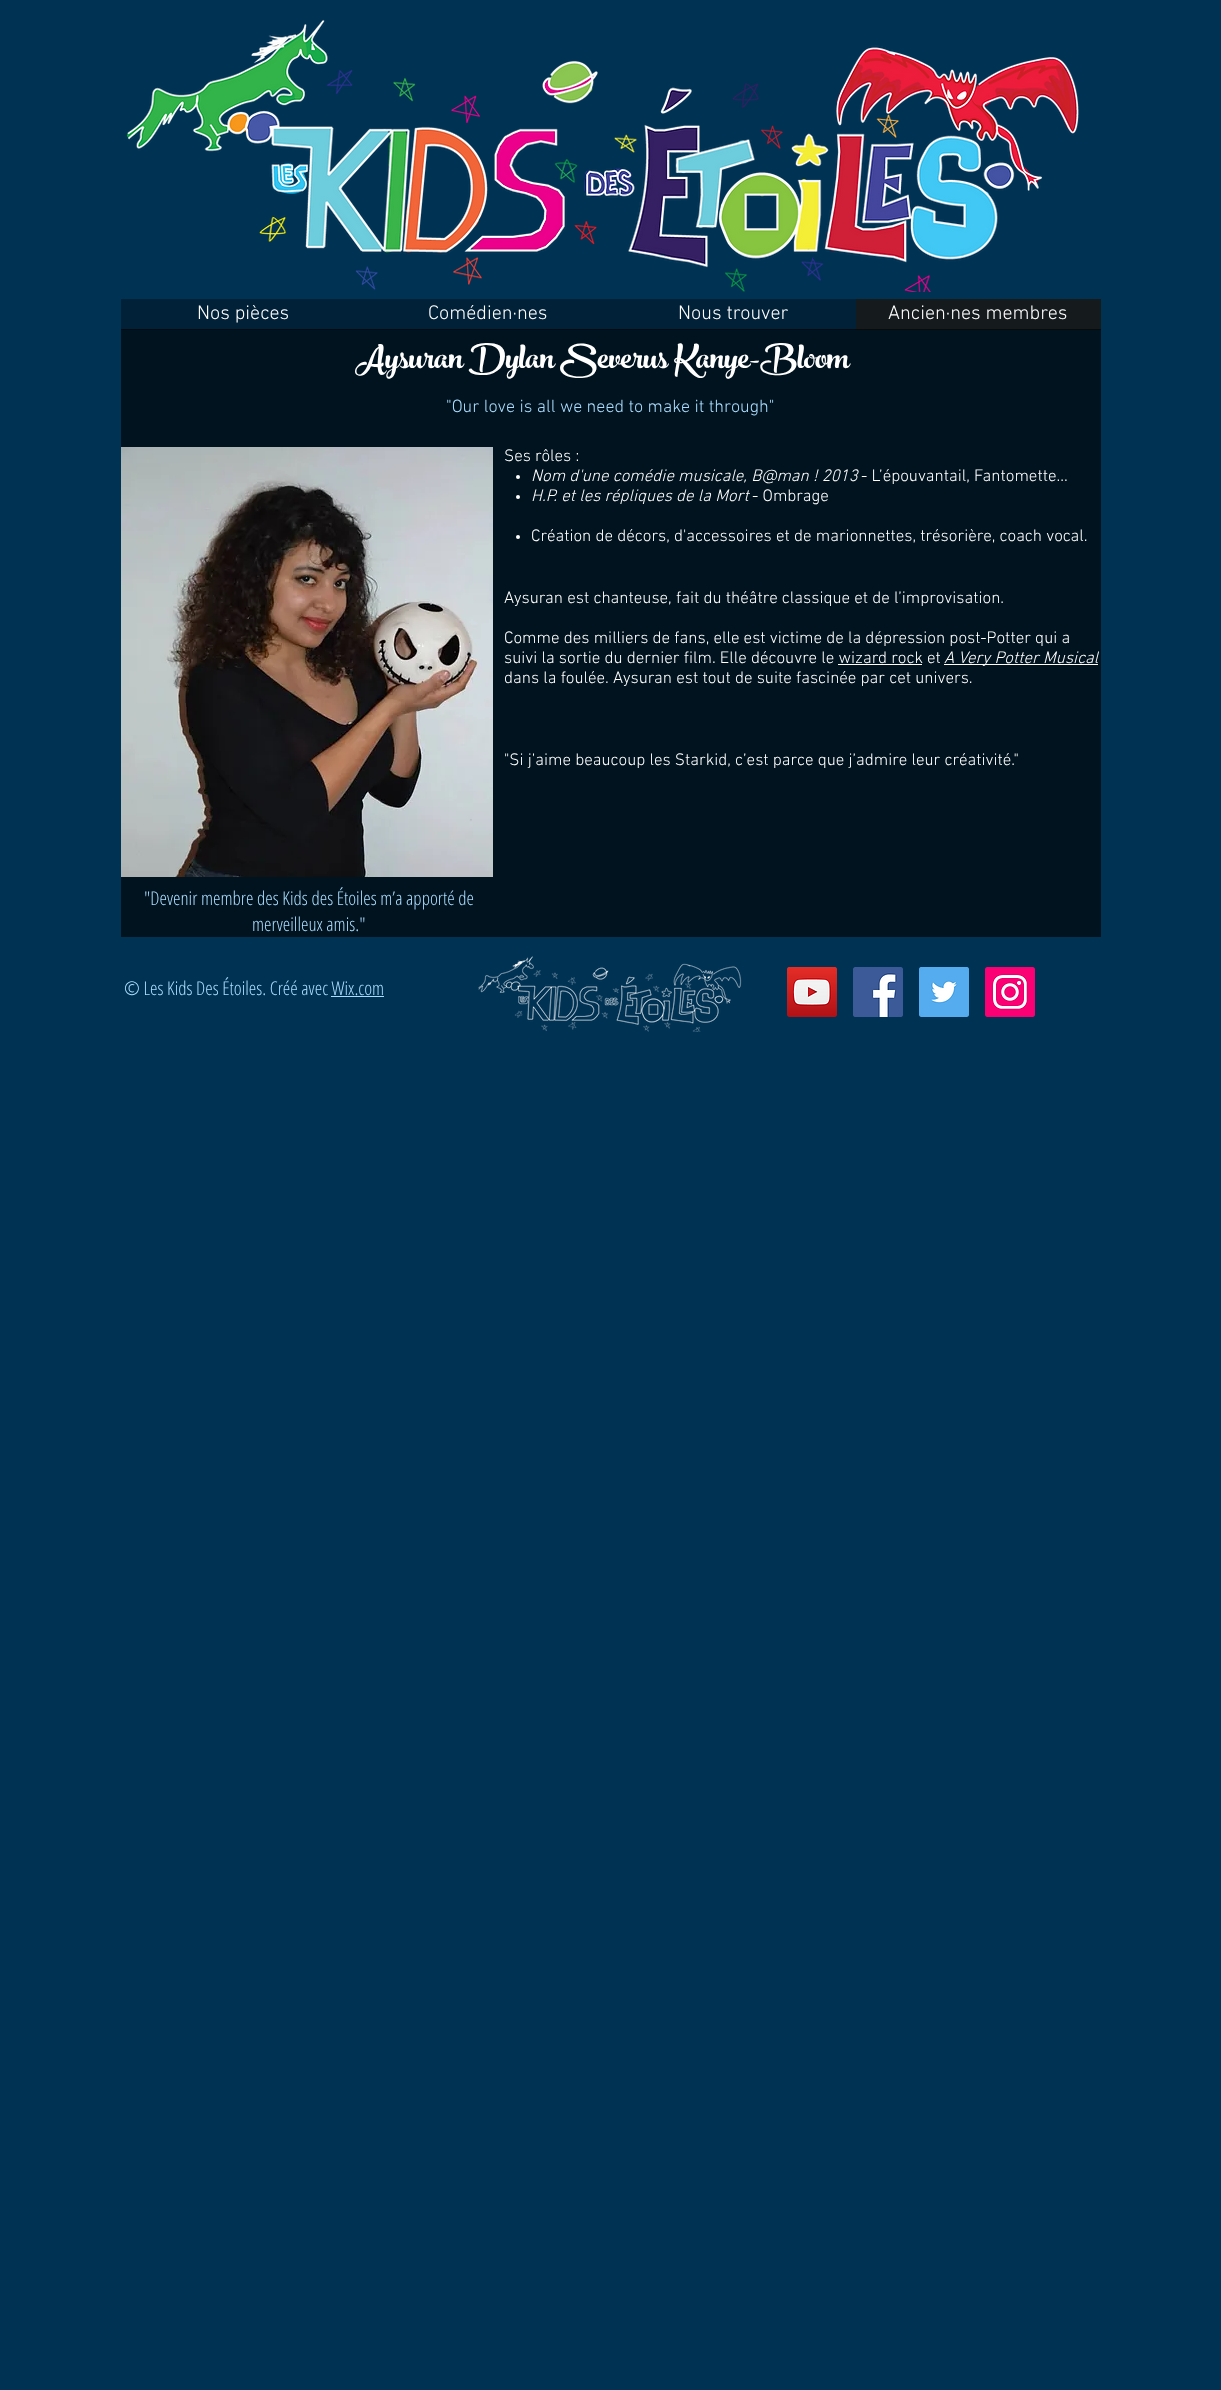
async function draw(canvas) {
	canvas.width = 1221;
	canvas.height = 2390;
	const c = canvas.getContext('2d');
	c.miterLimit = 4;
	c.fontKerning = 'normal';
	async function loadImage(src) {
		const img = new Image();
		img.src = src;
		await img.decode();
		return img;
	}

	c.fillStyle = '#003254';
	c.fillRect(0, 0, 1221, 2390);
	c.drawImage(await loadImage('img1.png'), 126, 19, 953, 273);
	c.fillStyle = '#002137';
	c.fillRect(121, 299, 735, 30);
	c.fillStyle = '#000c14';
	c.fillRect(121, 329, 735, 1);
	c.font = '300 20px "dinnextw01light"';
	c.fillStyle = '#fff';
	for (const [text, x, y] of [
		['Nos pièces', 197, 319],
		['Comédien·nes', 428, 319],
		['Nous trouver', 678, 319],
	]) {
		c.fillText(text, x, y);
	}
	c.fillStyle = '#151a1d';
	c.fillRect(856, 299, 245, 30);
	c.fillStyle = '#080a0b';
	c.fillRect(856, 329, 245, 1);
	c.fillStyle = '#fff';
	c.fillText('Ancien·nes membres', 888, 319);
	c.fillStyle = '#00131f';
	c.fillRect(121, 330, 980, 607);
	c.font = '50px "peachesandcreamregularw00"';
	c.fillStyle = '#fff';
	c.fillText('Aysuran Dylan Severus Kanye-Bloom', 355, 368);
	c.font = '300 18px "dinnextw01light"';
	c.fillStyle = '#adf';
	c.fillText('"Our love is all we need to make it through"', 446, 412);
	c.drawImage(await loadImage('img2.png'), 121, 447, 372, 430);
	c.font = '300 17px "dinnextw01light"';
	c.fillStyle = '#fff';
	c.fillText('Ses rôles :', 504, 461);
	c.beginPath();
	c.arc(518, 477, 2, 0, 2 * Math.PI);
	c.fill();
	c.font = 'italic 300 17px "dinnextw01light"';
	c.fillText('Nom d\'une comédie musicale, B@man ! 2013', 531, 481);
	c.font = '300 17px "dinnextw01light"';
	c.fillText('- L’épouvantail, Fantomette...', 861, 481);
	c.beginPath();
	c.arc(518, 497, 2, 0, 2 * Math.PI);
	c.fill();
	c.font = 'italic 300 17px "dinnextw01light"';
	c.fillText('H.P. et les répliques de la Mort', 531, 501);
	c.font = '300 17px "dinnextw01light"';
	c.fillText('- Ombrage', 752, 501);
	c.beginPath();
	c.arc(518, 537, 2, 0, 2 * Math.PI);
	c.fill();
	for (const [text, x, y] of [
		['Création de décors, d\'accessoires et de marionnettes, trésorière, coach vocal.', 531, 541],
		['Aysuran est chanteuse, fait du théâtre classique et de l’improvisation.', 504, 603],
		['Comme des milliers de fans, elle est victime de la dépression post-Potter qui a', 504, 643],
		['suivi la sortie du dernier film. Elle découvre le wizard rock et', 504, 663],
	]) {
		c.fillText(text, x, y);
	}
	c.fillRect(838, 664, 84, 1);
	c.fillRect(944, 664, 154, 1);
	c.font = 'italic 300 17px "dinnextw01light"';
	c.fillText('A Very Potter Musical', 944, 663);
	c.font = '300 17px "dinnextw01light"';
	c.fillText('dans la foulée. Aysuran est tout de suite fascinée par cet univers.', 504, 683);
	c.fillText('"Si j’aime beaucoup les Starkid, c’est parce que j’admire leur créativité."', 504, 765);
	c.font = '300 19px Open Sans Condensed';
	c.fillStyle = '#adf';
	for (const [text, x, y] of [
		['"Devenir membre des Kids des Étoiles m’a apporté de', 144, 905],
		['merveilleux amis."', 252, 931],
		['© Les Kids Des Étoiles. Créé avec Wix.com', 124, 995],
	]) {
		c.fillText(text, x, y);
	}
	c.fillRect(331, 996, 53, 1);
	c.drawImage(await loadImage('img3.png'), 478, 956, 264, 76);
	c.drawImage(await loadImage('img4.png'), 787, 967, 50, 50);
	c.drawImage(await loadImage('img5.png'), 853, 967, 50, 50);
	c.drawImage(await loadImage('img6.png'), 919, 967, 50, 50);
	c.drawImage(await loadImage('img7.png'), 985, 967, 50, 50);
}

draw(document.querySelector('canvas'));
